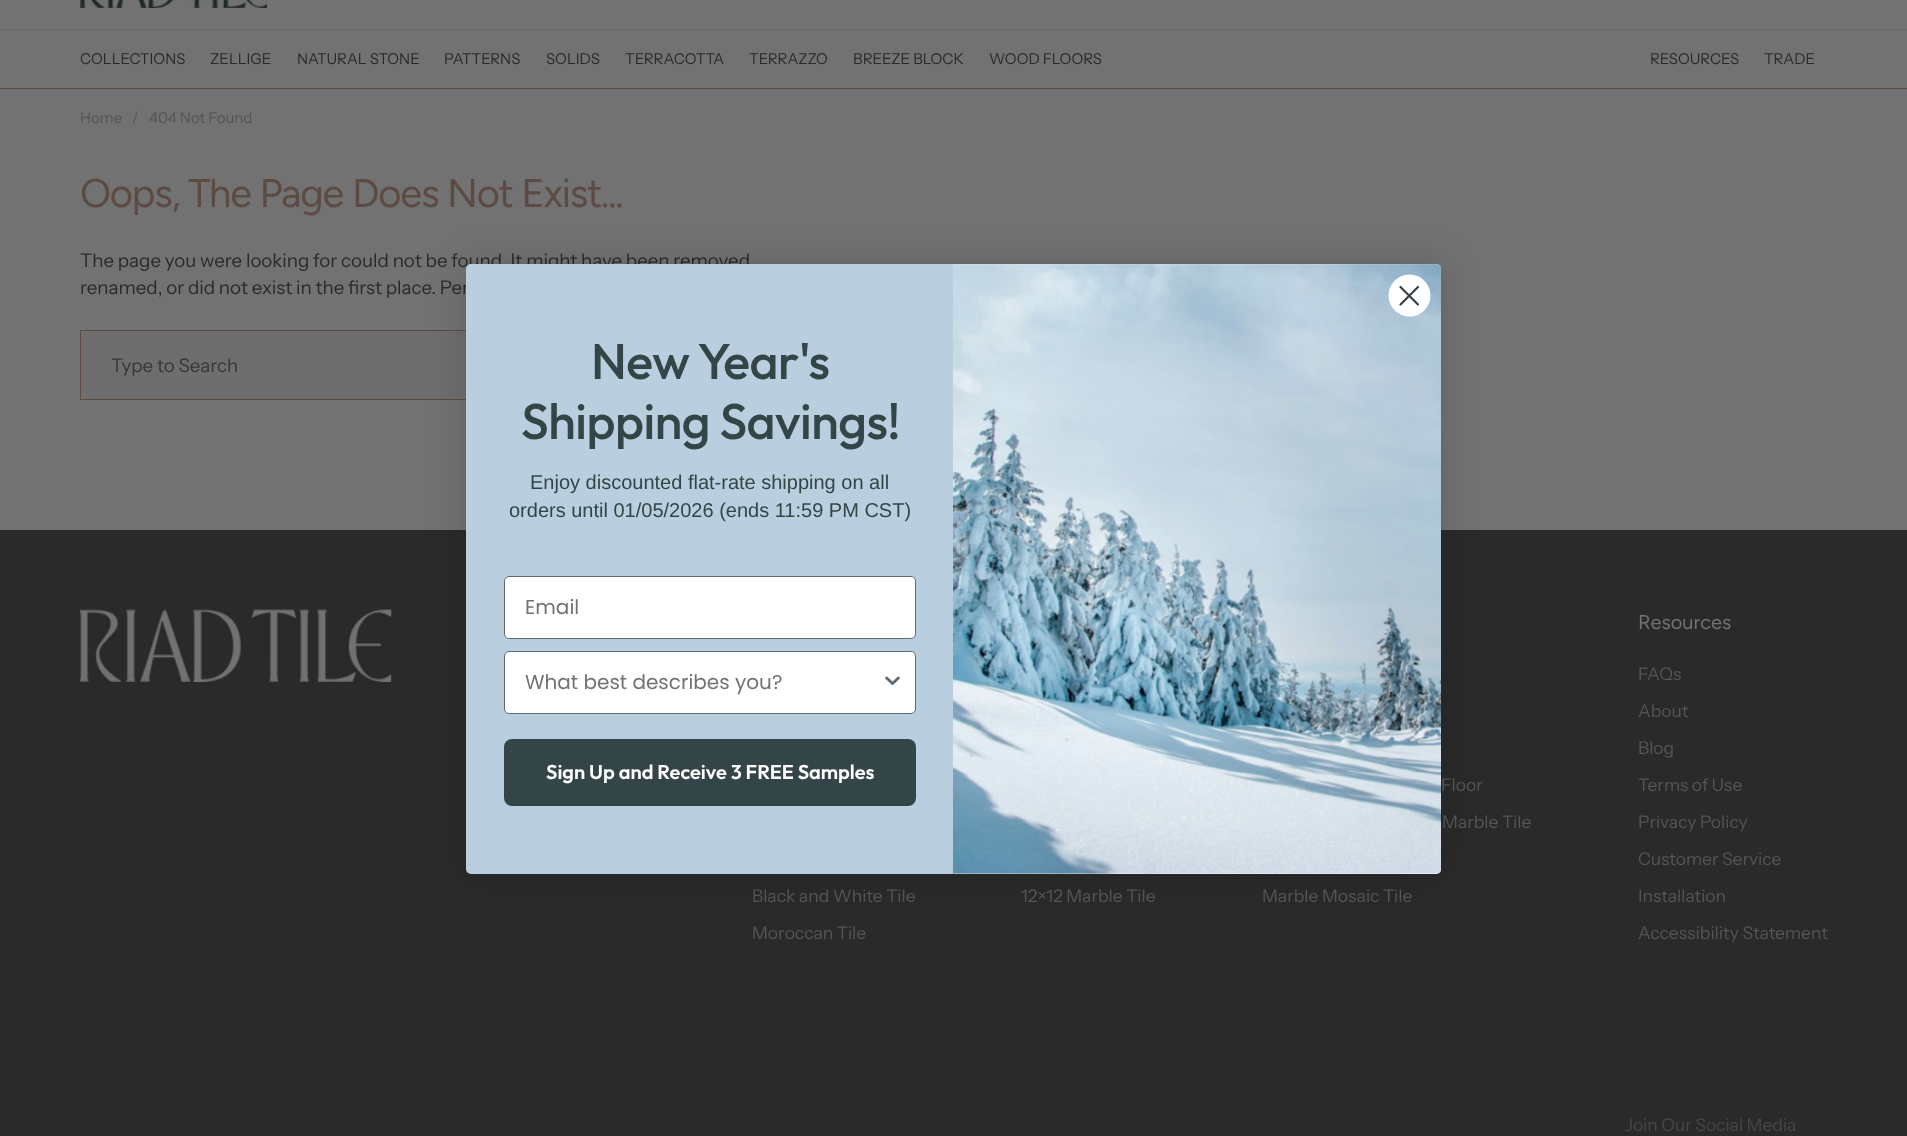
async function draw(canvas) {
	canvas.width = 1907;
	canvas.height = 1136;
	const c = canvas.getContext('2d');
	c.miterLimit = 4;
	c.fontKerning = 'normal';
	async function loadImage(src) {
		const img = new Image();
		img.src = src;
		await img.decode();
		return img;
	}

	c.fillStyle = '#727272';
	c.fillRect(0, 0, 1907, 1136);
	c.drawImage(await loadImage('img1.png'), 80, 0, 187, 8);
	c.fillStyle = '#676767';
	c.fillRect(0, 29, 1907, 1);
	c.font = '15px Instrument Sans';
	c.fillStyle = '#2a2a2a';
	for (const [text, x, y] of [
		['COLLECTIONS', 80, 64],
		['ZELLIGE', 210, 64],
		['NATURAL STONE', 297, 64],
		['PATTERNS', 444, 64],
		['SOLIDS', 546, 64],
		['TERRACOTTA', 625, 64],
		['TERRAZZO', 749, 64],
		['BREEZE BLOCK', 853, 64],
		['WOOD FLOORS', 989, 64],
		['RESOURCES', 1650, 64],
		['TRADE', 1764, 64],
	]) {
		c.fillText(text, x, y);
	}
	c.fillStyle = '#5c4b43';
	c.fillRect(0, 88, 1907, 1);
	c.fillStyle = '#555';
	for (const [text, x, y] of [
		['Home', 80, 123],
		['/', 132, 123],
		['404 Not Found', 149, 123],
	]) {
		c.fillText(text, x, y);
	}
	c.letterSpacing = '-1.2px';
	c.font = '40px Figtree';
	c.fillStyle = '#5c4b43';
	c.fillText('Oops, The Page Does Not Exist...', 80, 207);
	c.letterSpacing = '0px';
	c.font = '18.75px Instrument Sans';
	c.fillStyle = '#2a2a2a';
	c.fillText('The page you were looking for could not be found. It might have been removed', 80, 267);
	c.fillText('renamed, or did not exist in the first place. Per', 80, 294);
	c.fillStyle = '#6e6e6e';
	c.fillRect(81, 331, 385, 68);
	c.strokeStyle = '#5c4b43';
	c.strokeRect(80.5, 330.5, 903, 69);
	c.fillStyle = '#363636';
	c.fillText('Type to Search', 111, 372);
	c.fillStyle = '#2a2a2a';
	c.fillRect(0, 530, 1907, 606);
	c.fillStyle = '#00000026';
	c.filter = 'blur(19px)';
	c.beginPath();
	c.roundRect(466, 264, 975, 610, 5);
	c.fill();
	c.filter = 'none';
	c.fillStyle = '#b9cfdf';
	c.beginPath();
	c.roundRect(466, 264, 975, 610, 5);
	c.fill();
	c.fillStyle = '#fff';
	c.beginPath();
	c.roundRect(954, 264, 487, 610, [0, 5, 5, 0]);
	c.fill();
	c.drawImage(await loadImage('img3.png'), 953, 264, 488, 610);
	c.beginPath();
	c.arc(1409.5, 295.5, 21, 0, 2 * Math.PI);
	c.fill();
	c.beginPath();
	c.moveTo(1400.5, 287);
	c.lineTo(1418, 304.5);
	c.moveTo(1400.5, 304.5);
	c.lineTo(1418, 287);
	c.closePath();
	c.strokeStyle = '#373f47';
	c.lineWidth = 2.2;
	c.lineCap = 'round';
	c.lineJoin = 'round';
	c.stroke();
	c.letterSpacing = '-0.5px';
	c.font = '500 50px Outfit';
	c.fillStyle = '#334546';
	c.fillText('New Year\'s', 591, 379);
	c.fillText('Shipping Savings!', 521, 439);
	c.letterSpacing = '0px';
	c.font = '20px Liberation Sans';
	c.fillText('Enjoy discounted flat-rate shipping on all', 530, 489);
	c.fillText('orders until 01/05/2026 (ends 11:59 PM CST)', 509, 517);
	c.fillStyle = '#fff';
	c.beginPath();
	c.roundRect(504.5, 576.5, 411, 62, 4.5);
	c.fill();
	c.strokeStyle = '#606a72';
	c.lineWidth = 1;
	c.lineJoin = 'miter';
	c.stroke();
	c.font = '20px Poppins';
	c.fillStyle = '#727272';
	c.fillText('Email', 525, 614);
	c.fillStyle = '#fff';
	c.beginPath();
	c.roundRect(504.5, 651.5, 411, 62, 4.5);
	c.fill();
	c.stroke();
	c.fillStyle = '#727272';
	c.fillText('What best describes you?', 525, 689);
	c.drawImage(await loadImage('img2.png'), 885, 676, 15, 9);
	c.fillStyle = '#334546';
	c.beginPath();
	c.roundRect(504, 739, 412, 67, 8);
	c.fill();
	c.font = '600 20px Outfit';
	c.fillStyle = '#fff';
	c.fillText('Sign Up and Receive 3 FREE Samples', 546, 779);
	c.drawImage(await loadImage('img4.png'), 80, 609, 312, 73);
	c.font = '17.5px Instrument Sans';
	c.fillStyle = '#555';
	for (const [text, x, y] of [
		['Floor', 1441, 791],
		['Marble Tile', 1442, 828],
		['Marble Mosaic Tile', 1262, 902],
	]) {
		c.fillText(text, x, y);
	}
	c.font = '20px Figtree';
	c.fillStyle = '#727272';
	c.fillText('Resources', 1638, 629);
	c.font = '17.5px Instrument Sans';
	c.fillStyle = '#555';
	for (const [text, x, y] of [
		['FAQs', 1638, 680],
		['About', 1638, 717],
		['Blog', 1638, 754],
		['Terms of Use', 1638, 791],
		['Privacy Policy', 1638, 828],
		['Customer Service', 1638, 865],
		['Installation', 1638, 902],
		['Accessibility Statement', 1638, 939],
		['Black and White Tile', 752, 902],
		['Moroccan Tile', 752, 939],
		['12×12 Marble Tile', 1021, 902],
	]) {
		c.fillText(text, x, y);
	}
	c.fillStyle = '#252525';
	c.fillRect(0, 1033, 1907, 1);
	c.fillStyle = '#464747';
	c.fillText('Join Our Social Media', 1625, 1131);
}

draw(document.querySelector('canvas'));
